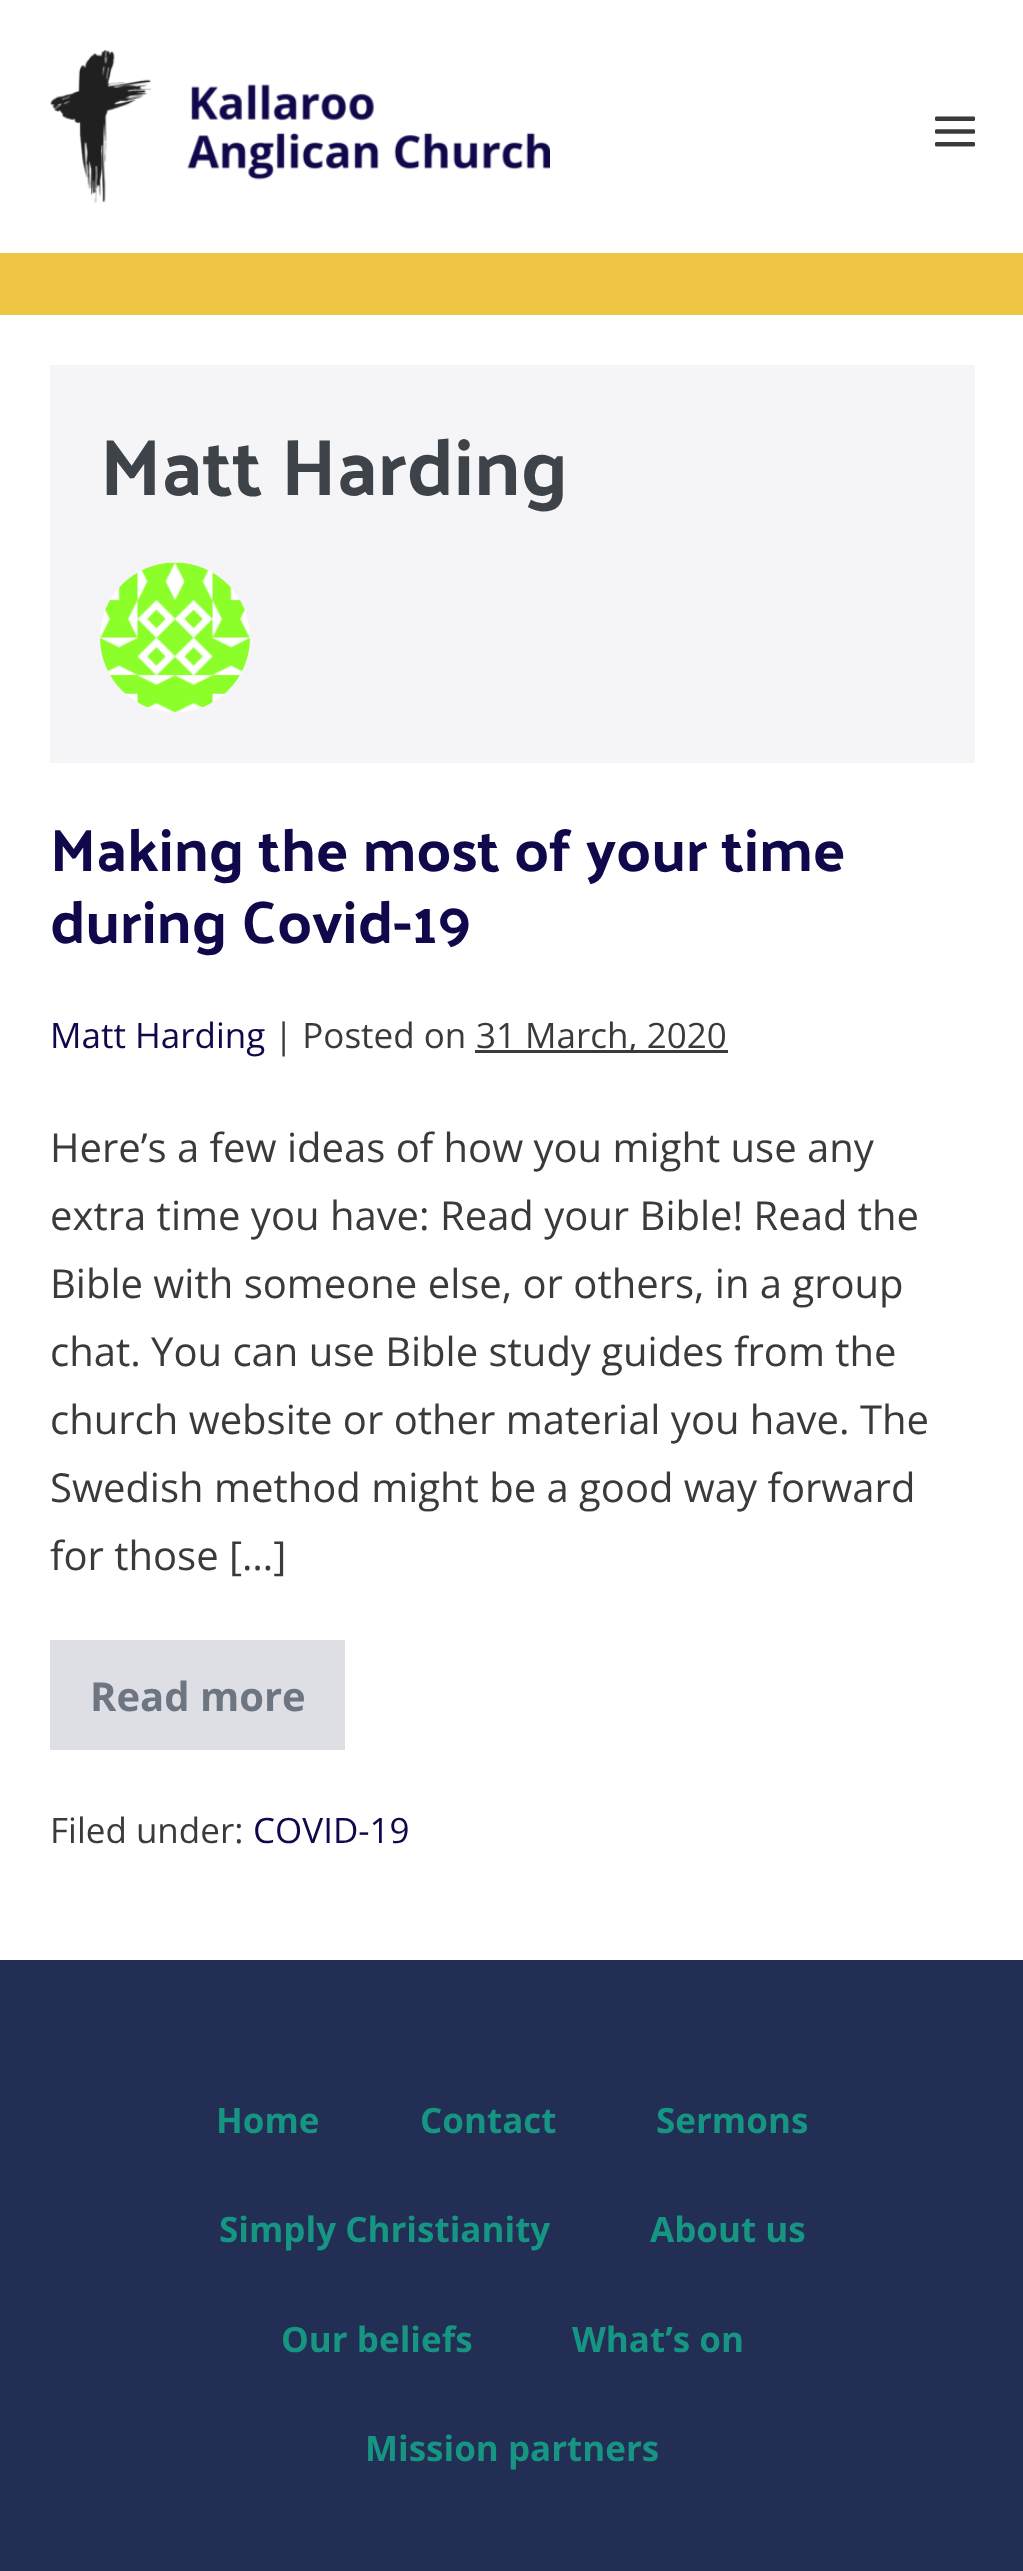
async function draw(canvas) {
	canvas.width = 1023;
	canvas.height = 2571;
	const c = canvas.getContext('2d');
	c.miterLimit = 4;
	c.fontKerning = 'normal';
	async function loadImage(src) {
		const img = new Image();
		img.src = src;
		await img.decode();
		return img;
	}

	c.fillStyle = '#fff';
	c.fillRect(0, 0, 1023, 2571);
	c.fillStyle = '#eec644';
	c.fillRect(0, 253, 1023, 62);
	c.drawImage(await loadImage('img1.png'), 50, 50, 500, 153);
	c.drawImage(await loadImage('img2.png'), 935, 116, 41, 31);
	c.fillStyle = '#f5f5f7';
	c.fillRect(50, 365, 925, 398);
	c.font = 'bold 80px Palanquin';
	c.fillStyle = '#3e4349';
	c.fillText('Matt Harding', 100, 495);
	c.drawImage(await loadImage('img3.png'), 100, 562, 150, 151);
	c.font = 'bold 60px Palanquin';
	c.fillStyle = '#0f084b';
	c.fillText('Making the most of your time', 50, 871);
	c.fillText('during Covid-19', 50, 943);
	c.font = '35px Open Sans';
	c.fillText('Matt Harding', 50, 1048);
	c.fillStyle = '#3a3a3a';
	c.fillText('| Posted on', 274, 1048);
	c.fillRect(475, 1050, 253, 3);
	c.fillText('31 March, 2020', 476, 1048);
	c.font = '40px Open Sans';
	for (const [text, x, y] of [
		['Here’s a few ideas of how you might use any', 50, 1162],
		['extra time you have: Read your Bible! Read the', 50, 1230],
		['Bible with someone else, or others, in a group', 50, 1298],
		['chat. You can use Bible study guides from the', 50, 1366],
		['church website or other material you have. The', 50, 1434],
		['Swedish method might be a good way forward', 50, 1502],
		['for those […]', 50, 1570],
	]) {
		c.fillText(text, x, y);
	}
	c.fillStyle = '#dedee5';
	c.fillRect(50, 1640, 295, 110);
	c.font = 'bold 40px Open Sans';
	c.fillStyle = '#6d7680';
	c.fillText('Read more', 90, 1711);
	c.font = '35px Open Sans';
	c.fillStyle = '#3a3a3a';
	c.fillText('Filed under:', 50, 1843);
	c.fillStyle = '#0f084b';
	c.fillText('COVID-19', 253, 1843);
	c.fillStyle = '#232e55';
	c.fillRect(0, 1960, 1023, 611);
	c.font = 'bold 35px Open Sans';
	c.fillStyle = '#159582';
	for (const [text, x, y] of [
		['Home', 216, 2133],
		['Contact', 420, 2133],
		['Sermons', 656, 2133],
		['Simply Christianity', 219, 2242],
		['About us', 650, 2242],
		['Our beliefs', 281, 2352],
		['What’s on', 572, 2352],
		['Mission partners', 365, 2461],
	]) {
		c.fillText(text, x, y);
	}
}

draw(document.querySelector('canvas'));
